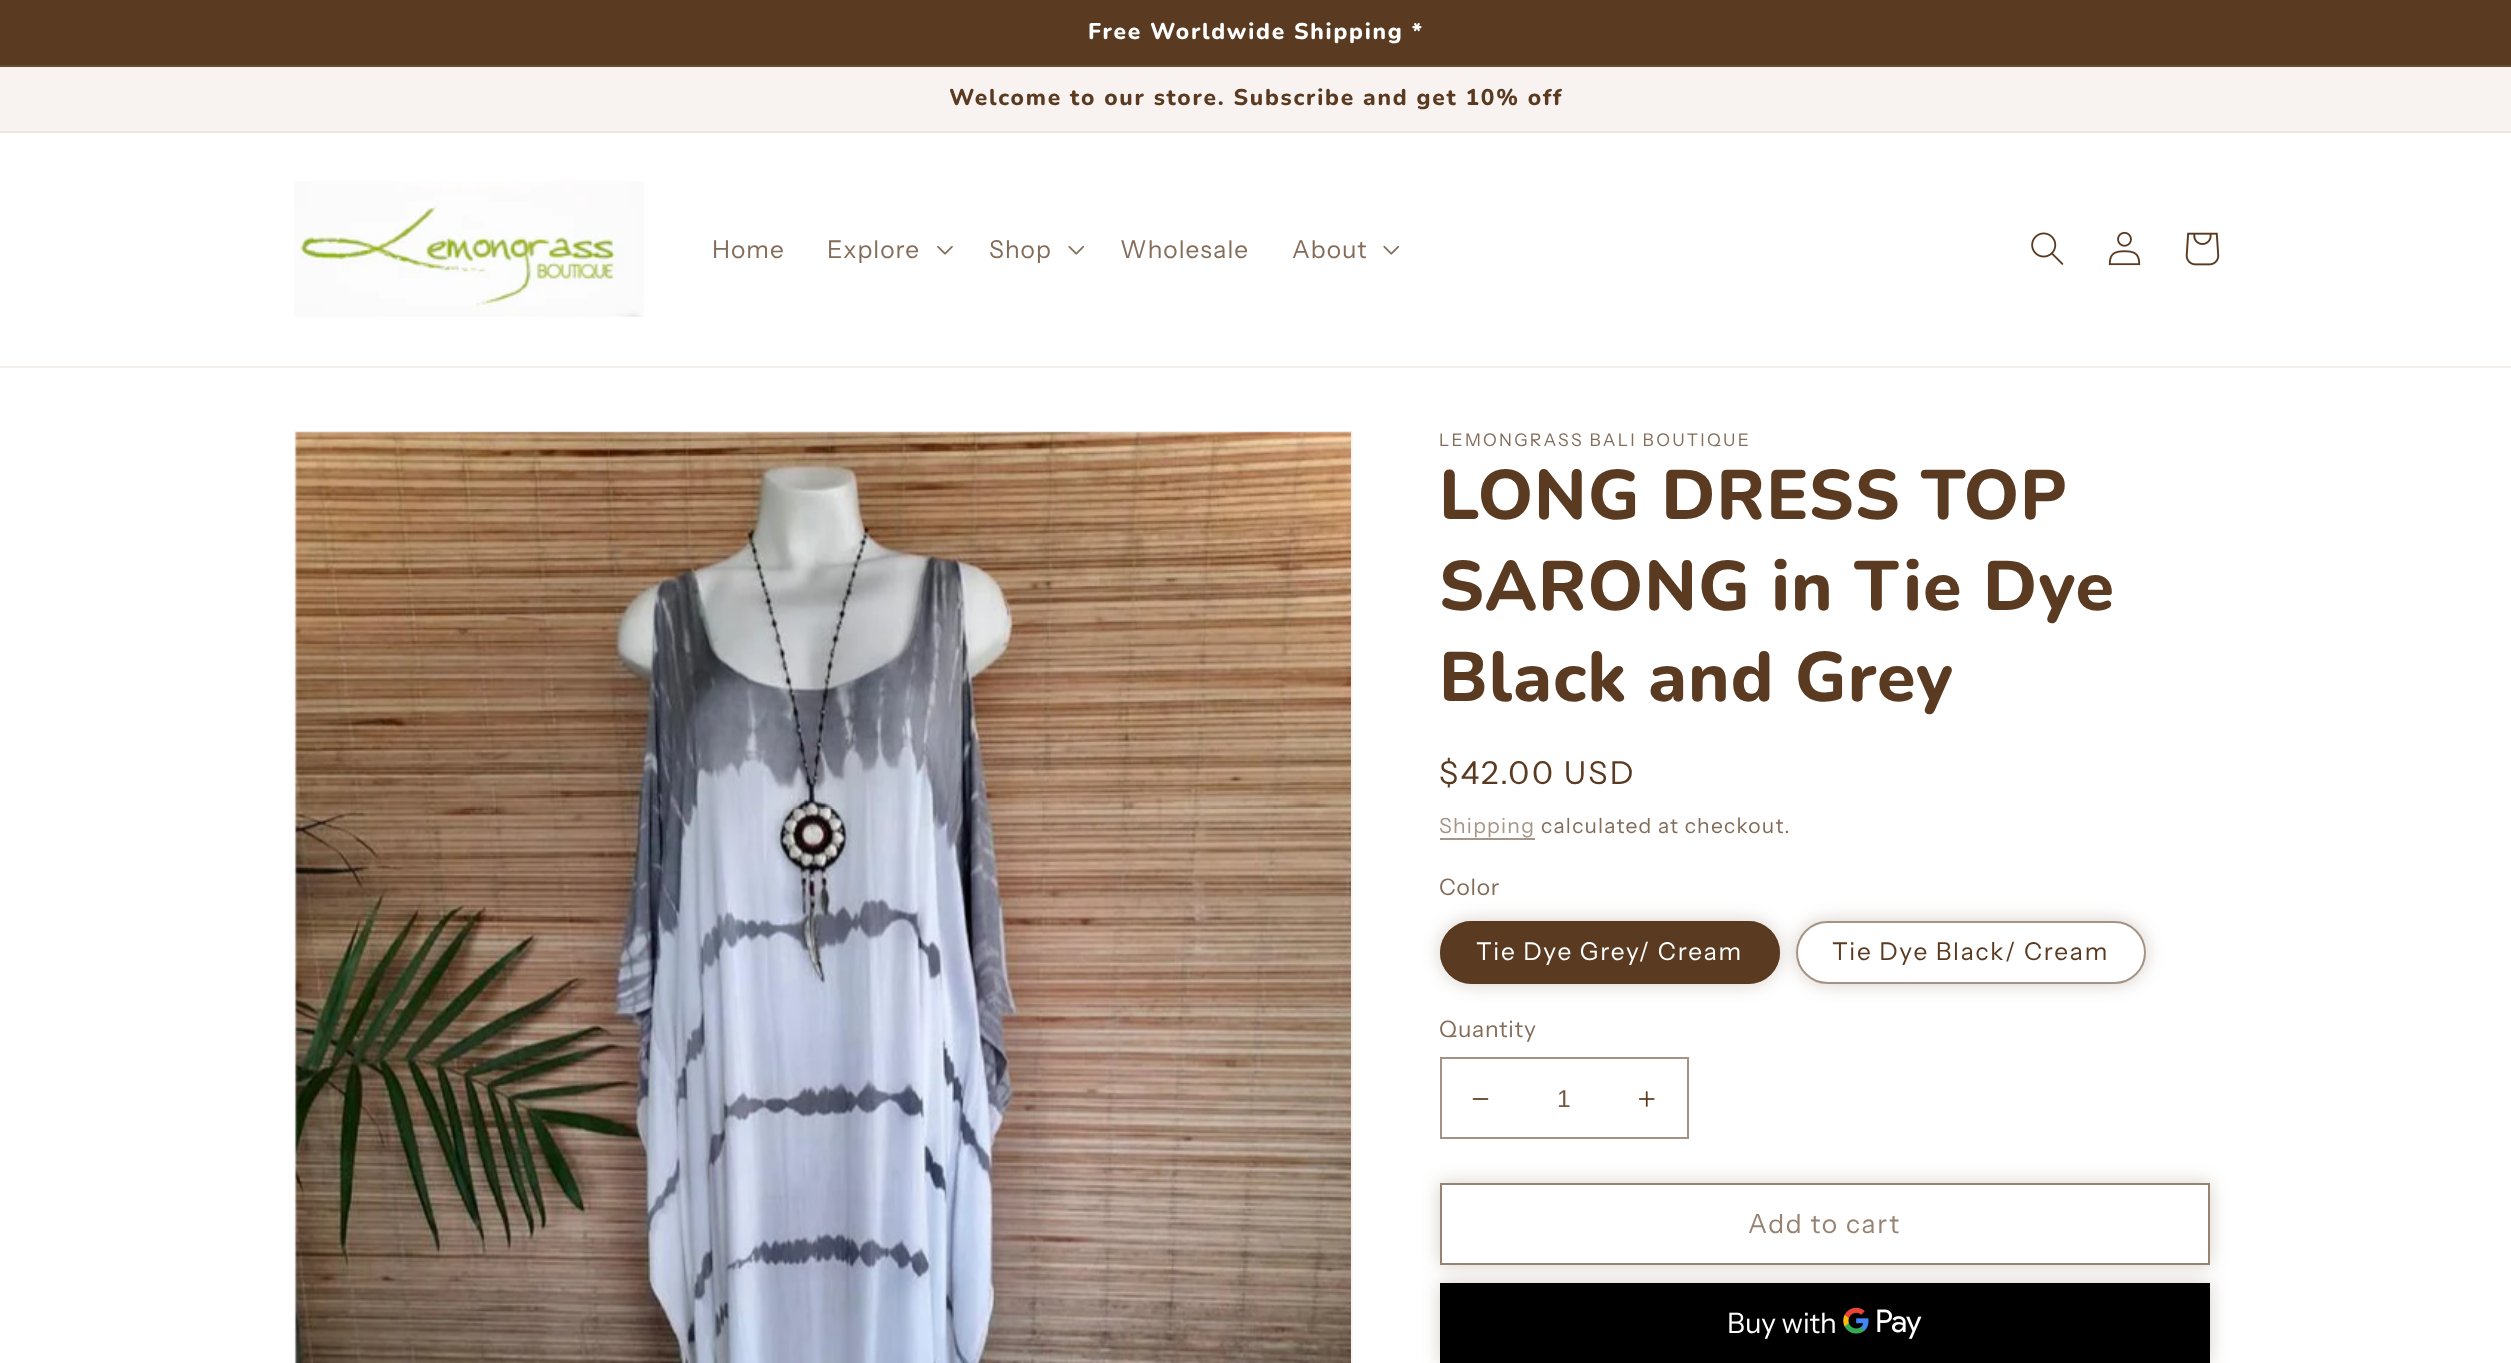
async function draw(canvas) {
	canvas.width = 2511;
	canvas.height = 1363;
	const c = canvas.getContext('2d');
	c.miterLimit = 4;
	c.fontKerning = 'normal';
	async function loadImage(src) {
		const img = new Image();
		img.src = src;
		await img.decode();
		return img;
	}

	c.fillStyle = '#fff';
	c.fillRect(0, 0, 2511, 1363);
	c.fillStyle = '#5a3b21';
	c.fillRect(0, 0, 2511, 65);
	c.fillStyle = '#674b33';
	c.fillRect(0, 65, 2511, 2);
	c.letterSpacing = '1.75px';
	c.font = '800 22.75px Nunito';
	c.fillStyle = '#fff';
	c.fillText('Free Worldwide Shipping *', 1088, 39);
	c.fillStyle = '#f8f3f0';
	c.fillRect(0, 67, 2511, 64);
	c.fillStyle = '#ebe4df';
	c.fillRect(0, 131, 2511, 2);
	c.fillStyle = '#5a3b21';
	c.fillText('Welcome to our store. Subscribe and get 10% off', 949, 105);
	c.fillStyle = '#f2efed';
	c.fillRect(0, 366, 2511, 2);
	c.drawImage(await loadImage('img1.png'), 294, 181, 350, 136);
	c.letterSpacing = '1px';
	c.font = '24.5px Instrument Sans';
	c.fillStyle = '#836c59';
	c.fillText('Home', 712, 258);
	c.fillText('Explore', 827, 258);
	c.drawImage(await loadImage('img2.png'), 937, 246, 16, 9);
	c.fillText('Shop', 989, 258);
	c.drawImage(await loadImage('img3.png'), 1068, 245, 17, 10);
	c.fillText('Wholesale', 1120, 258);
	c.fillText('About', 1292, 258);
	c.drawImage(await loadImage('img3.png'), 1383, 245, 17, 10);
	c.drawImage(await loadImage('img4.png'), 2031, 232, 33, 33);
	c.drawImage(await loadImage('img5.png'), 2108, 231, 33, 35);
	c.drawImage(await loadImage('img6.png'), 2185, 232, 35, 34);
	c.strokeStyle = '#f7f5f4';
	c.lineWidth = 2;
	c.strokeRect(295, 432, 1057, 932);
	c.drawImage(await loadImage('img7.png'), 295, 431, 1056, 932);
	c.letterSpacing = '2.25px';
	c.font = '17.5px Instrument Sans';
	c.fillText('LEMONGRASS BALI BOUTIQUE', 1439, 446);
	c.letterSpacing = '1px';
	c.font = '800 70px Nunito';
	c.fillStyle = '#5a3b21';
	for (const [text, x, y] of [
		['LONG DRESS TOP', 1439, 519],
		['SARONG in Tie Dye', 1439, 610],
		['Black and Grey', 1439, 701],
	]) {
		c.fillText(text, x, y);
	}
	c.letterSpacing = '2.25px';
	c.font = '31.5px Instrument Sans';
	c.fillText('$42.00 USD', 1439, 784);
	c.letterSpacing = '1.25px';
	c.font = '21px Instrument Sans';
	c.fillStyle = '#a79687';
	c.fillText('Shipping', 1439, 833);
	c.fillRect(1440, 838, 95, 2);
	c.fillStyle = '#836c59';
	c.fillText('calculated at checkout.', 1541, 833);
	c.fillStyle = '#5a3b2140';
	c.filter = 'blur(9px)';
	c.beginPath();
	c.roundRect(1440, 921, 340, 63, 31.5);
	c.fill();
	c.filter = 'none';
	c.letterSpacing = '0.75px';
	c.font = '22.75px Instrument Sans';
	c.fillStyle = '#836c59';
	c.fillText('Color', 1439, 895);
	c.fillStyle = '#5a3b2140';
	c.filter = 'blur(9px)';
	c.beginPath();
	c.roundRect(1796, 921, 350, 63, 31.5);
	c.fill();
	c.filter = 'none';
	c.fillStyle = '#5a3b21';
	c.beginPath();
	c.roundRect(1440, 921, 340, 63, 31.5);
	c.fill();
	c.beginPath();
	c.roundRect(1441, 922, 338, 61, 30.5);
	c.strokeStyle = '#5a3b218c';
	c.stroke();
	c.letterSpacing = '1.75px';
	c.font = '24.5px Instrument Sans';
	c.fillStyle = '#fff';
	c.fillText('Tie Dye Grey/ Cream', 1476, 960);
	c.beginPath();
	c.roundRect(1796, 921, 350, 63, 31.5);
	c.fill();
	c.beginPath();
	c.roundRect(1797, 922, 348, 61, 30.5);
	c.stroke();
	c.fillStyle = '#5a3b21';
	c.fillText('Tie Dye Black/ Cream', 1832, 960);
	c.letterSpacing = '0.75px';
	c.font = '22.75px Instrument Sans';
	c.fillStyle = '#836c59';
	c.fillText('Quantity', 1439, 1037);
	c.drawImage(await loadImage('img8.png'), 1472, 1098, 17, 2);
	c.drawImage(await loadImage('img9.png'), 1639, 1091, 16, 16);
	c.strokeStyle = '#a49385';
	c.strokeRect(1441, 1058, 247, 80);
	c.letterSpacing = '0px';
	c.font = '24.5px Liberation Sans';
	c.fillStyle = '#735842';
	c.fillText('1', 1557, 1107);
	c.fillStyle = '#5a3b2140';
	c.filter = 'blur(9px)';
	c.beginPath();
	c.rect(1440, 1183, 770, 82);
	c.fill();
	c.filter = 'none';
	c.filter = 'blur(9px)';
	c.beginPath();
	c.rect(1440, 1283, 770, 80);
	c.fill();
	c.filter = 'none';
	c.fillStyle = '#fff';
	c.fillRect(1442, 1185, 766, 78);
	c.strokeStyle = '#978372';
	c.strokeRect(1441, 1184, 768, 80);
	c.letterSpacing = '1.75px';
	c.font = '26.25px Instrument Sans';
	c.fillStyle = '#978372';
	c.fillText('Add to cart', 1748, 1233);
	c.fillStyle = '#000';
	c.fillRect(1440, 1283, 770, 80);
	c.letterSpacing = '0px';
	c.font = '28px Instrument Sans';
	c.fillStyle = '#fff';
	c.fillText('Buy with', 1727, 1333);
	c.drawImage(await loadImage('img10.png'), 1843, 1307, 79, 32);
}

draw(document.querySelector('canvas'));
